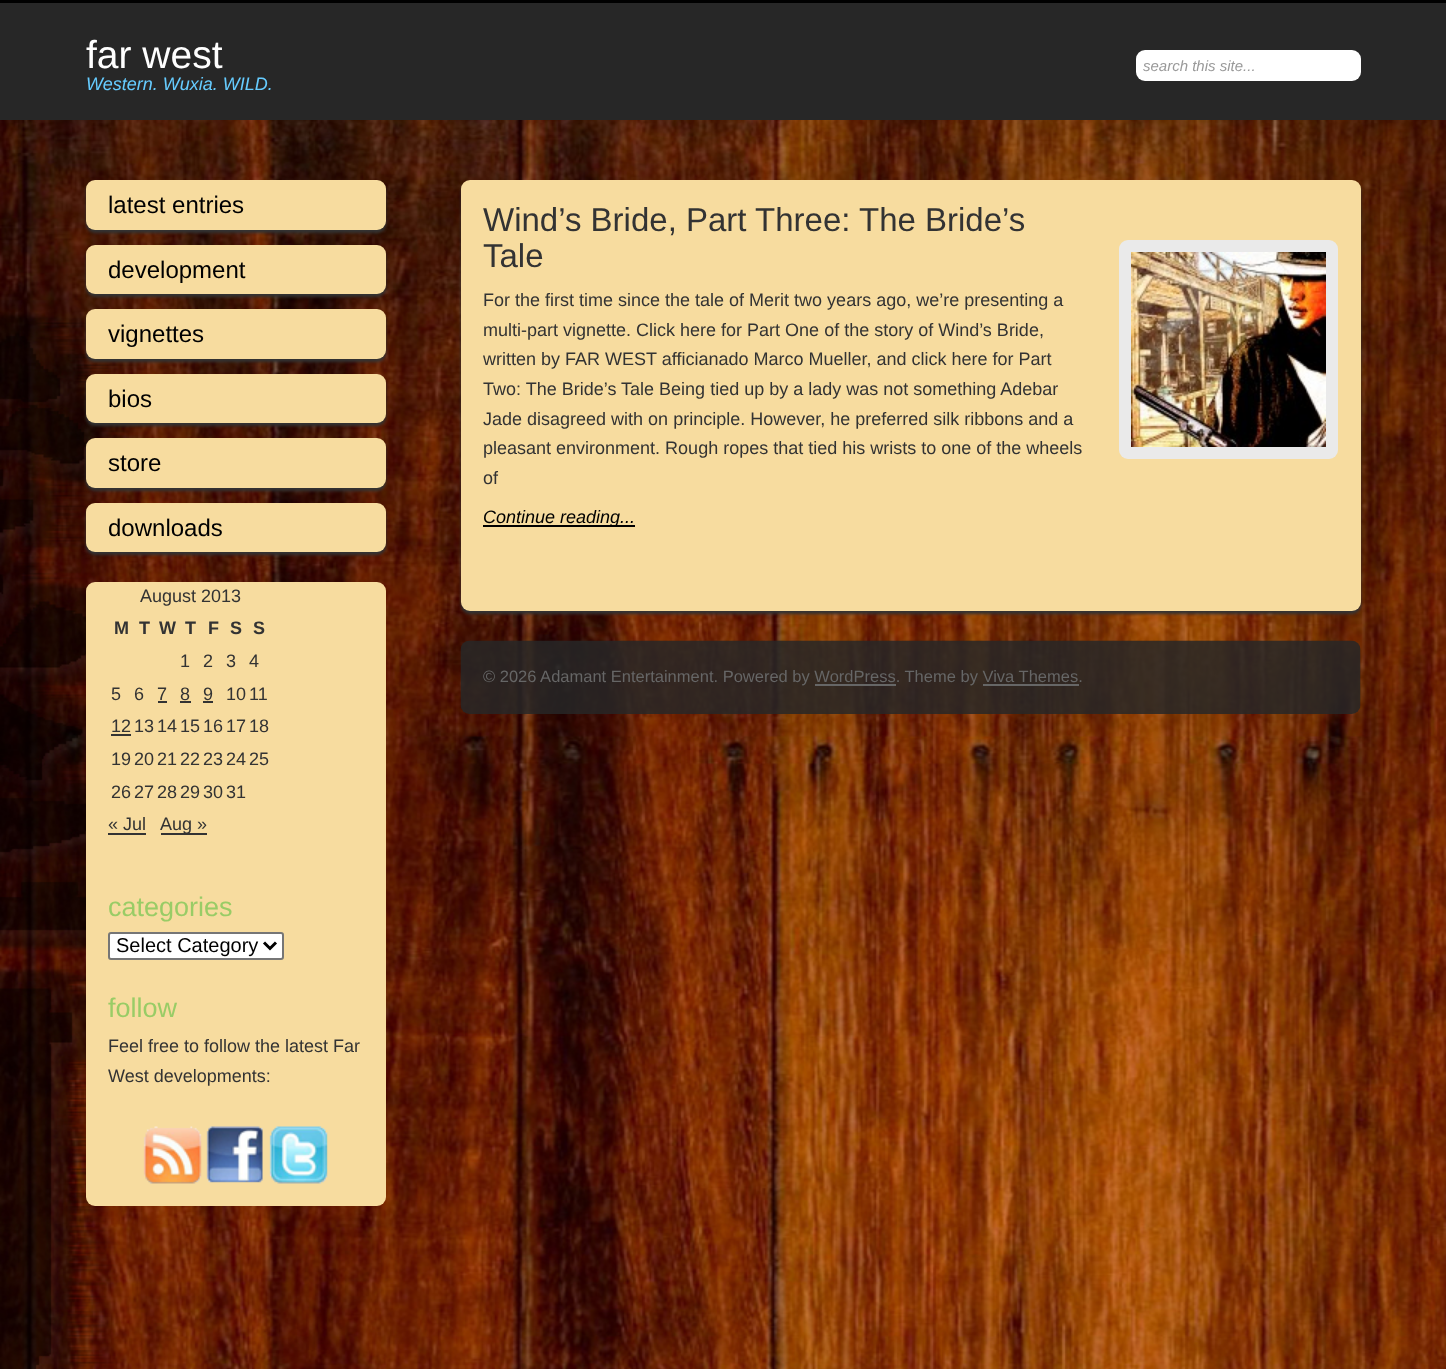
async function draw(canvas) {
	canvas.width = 1446;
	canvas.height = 1369;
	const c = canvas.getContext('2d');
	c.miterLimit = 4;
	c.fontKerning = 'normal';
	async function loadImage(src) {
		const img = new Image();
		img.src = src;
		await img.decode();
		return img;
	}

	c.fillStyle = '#fff';
	c.fillRect(0, 0, 1446, 1369);
	c.drawImage(await loadImage('img1.png'), 0, 120, 1446, 1249);
	c.fillStyle = '#272727';
	c.fillRect(0, 3, 1446, 117);
	c.fillStyle = '#000';
	c.fillRect(0, 0, 1446, 3);
	c.font = '39px Liberation Sans';
	c.fillStyle = '#fff';
	c.fillText('far west', 86, 68);
	c.font = 'italic 18px Liberation Sans';
	c.fillStyle = '#6cf';
	c.fillText('Western. Wuxia. WILD.', 86, 90);
	c.fillStyle = '#fff';
	c.beginPath();
	c.roundRect(1136, 50, 225, 31, 9);
	c.fill();
	c.font = 'italic 15px Liberation Sans';
	c.fillStyle = '#999';
	c.fillText('search this site...', 1143, 71);
	c.fillStyle = '#333';
	c.filter = 'blur(1.5px)';
	c.beginPath();
	c.roundRect(86, 183, 300, 50, 9);
	c.fill();
	c.filter = 'none';
	c.fillStyle = '#f7dc9f';
	c.beginPath();
	c.roundRect(86, 180, 300, 50, 9);
	c.fill();
	c.font = '24px Liberation Sans';
	c.fillStyle = '#000';
	c.fillText('latest entries', 108, 213);
	c.fillStyle = '#333';
	c.filter = 'blur(1.5px)';
	c.beginPath();
	c.roundRect(86, 248, 300, 49, 9);
	c.fill();
	c.filter = 'none';
	c.fillStyle = '#f7dc9f';
	c.beginPath();
	c.roundRect(86, 245, 300, 49, 9);
	c.fill();
	c.fillStyle = '#000';
	c.fillText('development', 108, 278);
	c.fillStyle = '#333';
	c.filter = 'blur(1.5px)';
	c.beginPath();
	c.roundRect(86, 312, 300, 50, 9);
	c.fill();
	c.filter = 'none';
	c.fillStyle = '#f7dc9f';
	c.beginPath();
	c.roundRect(86, 309, 300, 50, 9);
	c.fill();
	c.fillStyle = '#000';
	c.fillText('vignettes', 108, 342);
	c.fillStyle = '#333';
	c.filter = 'blur(1.5px)';
	c.beginPath();
	c.roundRect(86, 377, 300, 49, 9);
	c.fill();
	c.filter = 'none';
	c.fillStyle = '#f7dc9f';
	c.beginPath();
	c.roundRect(86, 374, 300, 49, 9);
	c.fill();
	c.fillStyle = '#000';
	c.fillText('bios', 108, 407);
	c.fillStyle = '#333';
	c.filter = 'blur(1.5px)';
	c.beginPath();
	c.roundRect(86, 441, 300, 50, 9);
	c.fill();
	c.filter = 'none';
	c.fillStyle = '#f7dc9f';
	c.beginPath();
	c.roundRect(86, 438, 300, 50, 9);
	c.fill();
	c.fillStyle = '#000';
	c.fillText('store', 108, 471);
	c.fillStyle = '#333';
	c.filter = 'blur(1.5px)';
	c.beginPath();
	c.roundRect(86, 506, 300, 49, 9);
	c.fill();
	c.filter = 'none';
	c.fillStyle = '#f7dc9f';
	c.beginPath();
	c.roundRect(86, 503, 300, 49, 9);
	c.fill();
	c.fillStyle = '#000';
	c.fillText('downloads', 108, 536);
	c.fillStyle = '#f7dc9f';
	c.beginPath();
	c.roundRect(86, 582, 300, 624, 9);
	c.fill();
	c.font = '18px Liberation Sans';
	c.fillStyle = '#333';
	c.fillText('August 2013', 140, 602);
	c.font = 'bold 18px Liberation Sans';
	for (const [text, x, y] of [
		['M', 114, 634],
		['T', 139, 634],
		['W', 159, 634],
		['T', 185, 634],
		['F', 208, 634],
		['S', 230, 634],
		['S', 253, 634],
	]) {
		c.fillText(text, x, y);
	}
	c.font = '18px Liberation Sans';
	for (const [text, x, y] of [
		['1', 180, 667],
		['2', 203, 667],
		['3', 226, 667],
		['4', 249, 667],
		['5', 111, 700],
		['6', 134, 700],
		['7', 157, 700],
	]) {
		c.fillText(text, x, y);
	}
	c.fillRect(158, 701, 9, 2);
	c.fillText('8', 180, 700);
	c.fillRect(180, 701, 11, 2);
	c.fillText('9', 203, 700);
	c.fillRect(203, 701, 10, 2);
	for (const [text, x, y] of [
		['10', 226, 700],
		['11', 249, 700],
		['12', 111, 732],
	]) {
		c.fillText(text, x, y);
	}
	c.fillRect(111, 734, 20, 2);
	for (const [text, x, y] of [
		['13', 134, 732],
		['14', 157, 732],
		['15', 180, 732],
		['16', 203, 732],
		['17', 226, 732],
		['18', 249, 732],
		['19', 111, 765],
		['20', 134, 765],
		['21', 157, 765],
		['22', 180, 765],
		['23', 203, 765],
		['24', 226, 765],
		['25', 249, 765],
		['26', 111, 798],
		['27', 134, 798],
		['28', 157, 798],
		['29', 180, 798],
		['30', 203, 798],
		['31', 226, 798],
		['« Jul', 108, 830],
	]) {
		c.fillText(text, x, y);
	}
	c.fillRect(108, 833, 38, 2);
	c.fillRect(161, 833, 46, 2);
	c.fillText('Aug »', 160, 830);
	c.font = '27px Liberation Sans';
	c.fillStyle = '#9c6';
	c.fillText('categories', 108, 916);
	c.fillStyle = '#fff';
	c.beginPath();
	c.roundRect(109, 933, 174, 26, 2);
	c.fill();
	c.strokeStyle = '#767676';
	c.lineWidth = 2;
	c.stroke();
	c.beginPath();
	c.moveTo(264, 942.5);
	c.lineTo(270, 948.5);
	c.lineTo(276, 942.5);
	c.strokeStyle = '#000';
	c.lineWidth = 3;
	c.stroke();
	c.font = '20px Liberation Sans';
	c.fillStyle = '#000';
	c.fillText('Select Category', 116, 952);
	c.font = '27px Liberation Sans';
	c.fillStyle = '#9c6';
	c.fillText('follow', 108, 1017);
	c.font = '18px Liberation Sans';
	c.fillStyle = '#333';
	c.fillText('Feel free to follow the latest Far', 108, 1052);
	c.fillText('West developments:', 108, 1082);
	c.drawImage(await loadImage('img2.png'), 143, 1126, 59, 58);
	c.drawImage(await loadImage('img3.png'), 206, 1126, 57, 57);
	c.drawImage(await loadImage('img4.png'), 269, 1126, 59, 58);
	c.filter = 'blur(1.5px)';
	c.beginPath();
	c.roundRect(461, 183, 900, 431, 9);
	c.fill();
	c.filter = 'none';
	c.fillStyle = '#f7dc9f';
	c.beginPath();
	c.roundRect(461, 180, 900, 431, 9);
	c.fill();
	c.font = '33px Liberation Sans';
	c.fillStyle = '#333';
	c.fillText('Wind’s Bride, Part Three: The Bride’s', 483, 231);
	c.fillText('Tale', 483, 267);
	c.fillStyle = '#eaeaea';
	c.beginPath();
	c.roundRect(1119, 240, 219, 219, 9);
	c.fill();
	c.drawImage(await loadImage('img5.png'), 1131, 252, 195, 195);
	c.font = '18px Liberation Sans';
	c.fillStyle = '#333';
	for (const [text, x, y] of [
		['For the first time since the tale of Merit two years ago, we’re presenting a', 483, 306],
		['multi-part vignette. Click here for Part One of the story of Wind’s Bride,', 483, 336],
		['written by FAR WEST afficianado Marco Mueller, and click here for Part', 483, 365],
		['Two: The Bride’s Tale Being tied up by a lady was not something Adebar', 483, 395],
		['Jade disagreed with on principle. However, he preferred silk ribbons and a', 483, 425],
		['pleasant environment. Rough ropes that tied his wrists to one of the wheels', 483, 454],
		['of', 483, 484],
	]) {
		c.fillText(text, x, y);
	}
	c.fillStyle = '#000';
	c.fillRect(483, 525, 152, 2);
	c.font = 'italic 18px Liberation Sans';
	c.fillText('Continue reading...', 483, 523);
	c.drawImage(await loadImage('img6.png'), 460, 640, 901, 74);
	c.font = '16.5px Liberation Sans';
	c.fillStyle = '#666';
	c.fillText('© 2026 Adamant Entertainment. Powered by WordPress. Theme by Viva Themes.', 483, 682);
	c.fillRect(815, 684, 81, 2);
	c.fillRect(983, 684, 96, 2);
}

draw(document.querySelector('canvas'));
